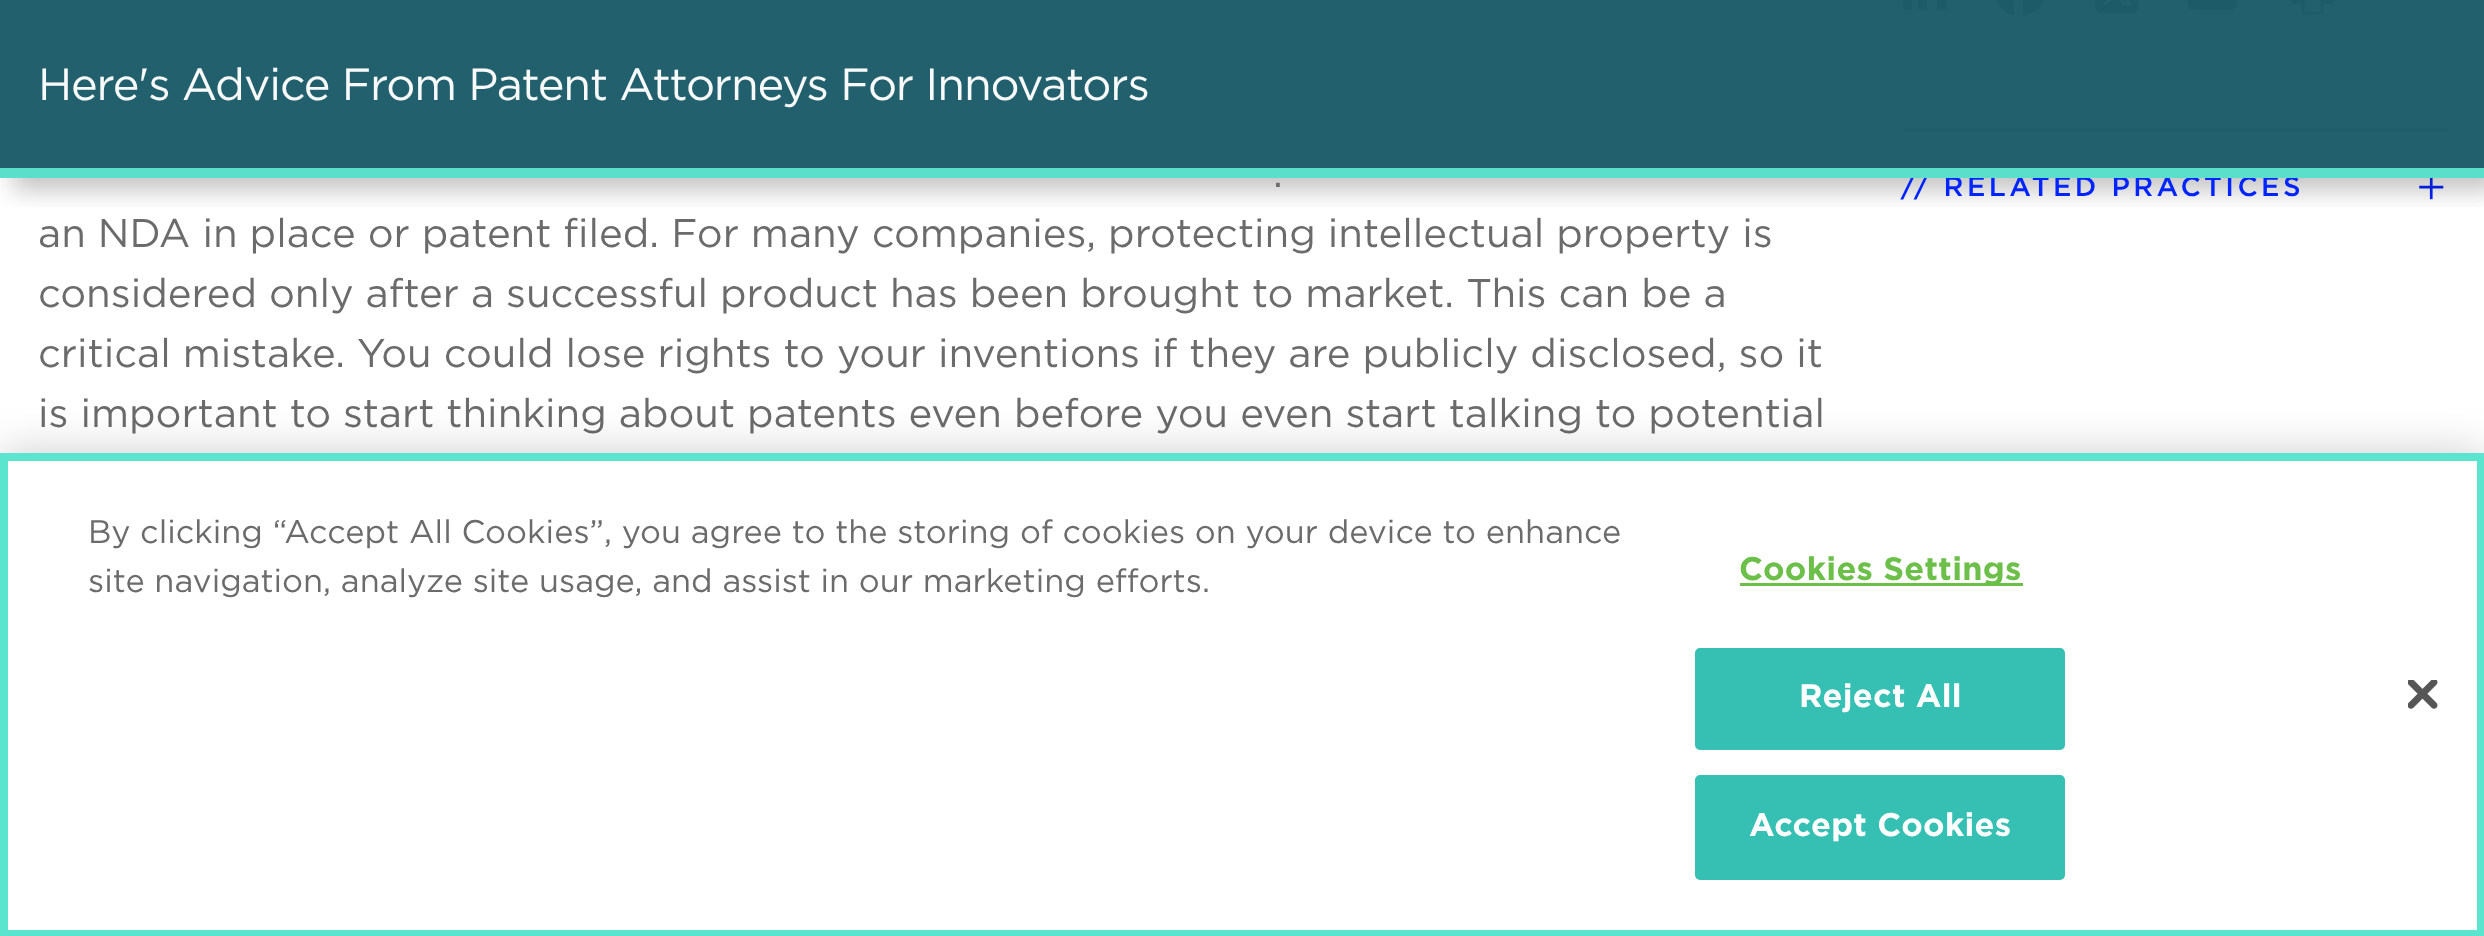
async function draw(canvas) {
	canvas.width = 2484;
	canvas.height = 936;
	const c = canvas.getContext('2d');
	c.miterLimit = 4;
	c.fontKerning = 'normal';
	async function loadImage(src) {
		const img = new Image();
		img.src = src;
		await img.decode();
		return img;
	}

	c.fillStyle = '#fff';
	c.fillRect(0, 0, 2484, 936);
	c.drawImage(await loadImage('img1.png'), 1903, 0, 44, 10);
	c.drawImage(await loadImage('img2.png'), 1996, 0, 48, 16);
	c.drawImage(await loadImage('img3.png'), 2095, 0, 44, 14);
	c.drawImage(await loadImage('img4.png'), 2187, 0, 51, 10);
	c.drawImage(await loadImage('img5.png'), 2291, 0, 43, 15);
	c.fillStyle = '#9d9d9d';
	c.fillRect(1903, 128, 545, 3);
	c.drawImage(await loadImage('img6.png'), 2419, 178, 25, 22);
	c.save();
	c.beginPath();
	c.rect(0, 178, 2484, 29);
	c.clip();
	c.fillStyle = '#0000003d';
	c.filter = 'blur(12.5px)';
	c.beginPath();
	c.rect(13, 13, 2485, 177);
	c.fill();
	c.filter = 'none';
	c.restore();
	c.fillStyle = '#1b5b69f7';
	c.fillRect(0, 0, 2484, 168);
	c.letterSpacing = '-1.12px';
	c.font = '45px Gotham';
	c.fillStyle = '#f8fafa';
	c.fillText('Here\'s Advice From Patent Attorneys For Innovators', 38, 100);
	c.letterSpacing = '3.4px';
	c.font = '500 27.5px Gotham';
	c.fillStyle = '#0024ff';
	c.fillText('// RELATED PRACTICES', 1901, 196);
	c.fillStyle = '#5ae0ca';
	c.fillRect(0, 168, 2484, 10);
	c.letterSpacing = '0px';
	c.font = '40px Gotham';
	c.fillStyle = '#6b6b6b';
	for (const [text, x, y] of [
		['.', 1273, 187],
		['an NDA in place or patent filed. For many companies, protecting intellectual property is', 38, 247],
		['considered only after a successful product has been brought to market. This can be a', 38, 307],
		['critical mistake. You could lose rights to your inventions if they are publicly disclosed, so it', 38, 367],
		['is important to start thinking about patents even before you even start talking to potential', 38, 427],
	]) {
		c.fillText(text, x, y);
	}
	c.fillStyle = '#00000033';
	c.filter = 'blur(22.5px)';
	c.beginPath();
	c.rect(0, 453, 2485, 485);
	c.fill();
	c.filter = 'none';
	c.fillStyle = '#fff';
	c.beginPath();
	c.rect(4, 457, 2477, 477);
	c.fill();
	c.strokeStyle = '#5ce5ce';
	c.lineWidth = 8;
	c.stroke();
	c.font = '32.5px Gotham';
	c.fillStyle = '#6b6b6b';
	c.fillText('By clicking “Accept All Cookies”, you agree to the storing of cookies on your device to enhance', 88, 543);
	c.fillText('site navigation, analyze site usage, and assist in our marketing efforts.', 88, 592);
	c.fillStyle = '#6cc04a';
	c.fillRect(1740, 583, 283, 3);
	c.letterSpacing = '0.3px';
	c.font = 'bold 32.5px Gotham';
	c.fillText('Cookies Settings', 1739, 580);
	c.fillStyle = '#36c0b3';
	c.beginPath();
	c.roundRect(1696.5, 649.5, 367, 99, 3.5);
	c.fill();
	c.strokeStyle = '#36c0b3';
	c.lineWidth = 3;
	c.stroke();
	c.fillStyle = '#fff';
	c.fillText('Reject All', 1799, 707);
	c.fillStyle = '#36c0b3';
	c.beginPath();
	c.roundRect(1696.5, 776.5, 367, 102, 3.5);
	c.fill();
	c.stroke();
	c.fillStyle = '#fff';
	c.fillText('Accept Cookies', 1749, 836);
	c.drawImage(await loadImage('img7.png'), 2408, 680, 30, 29);
}

draw(document.querySelector('canvas'));
